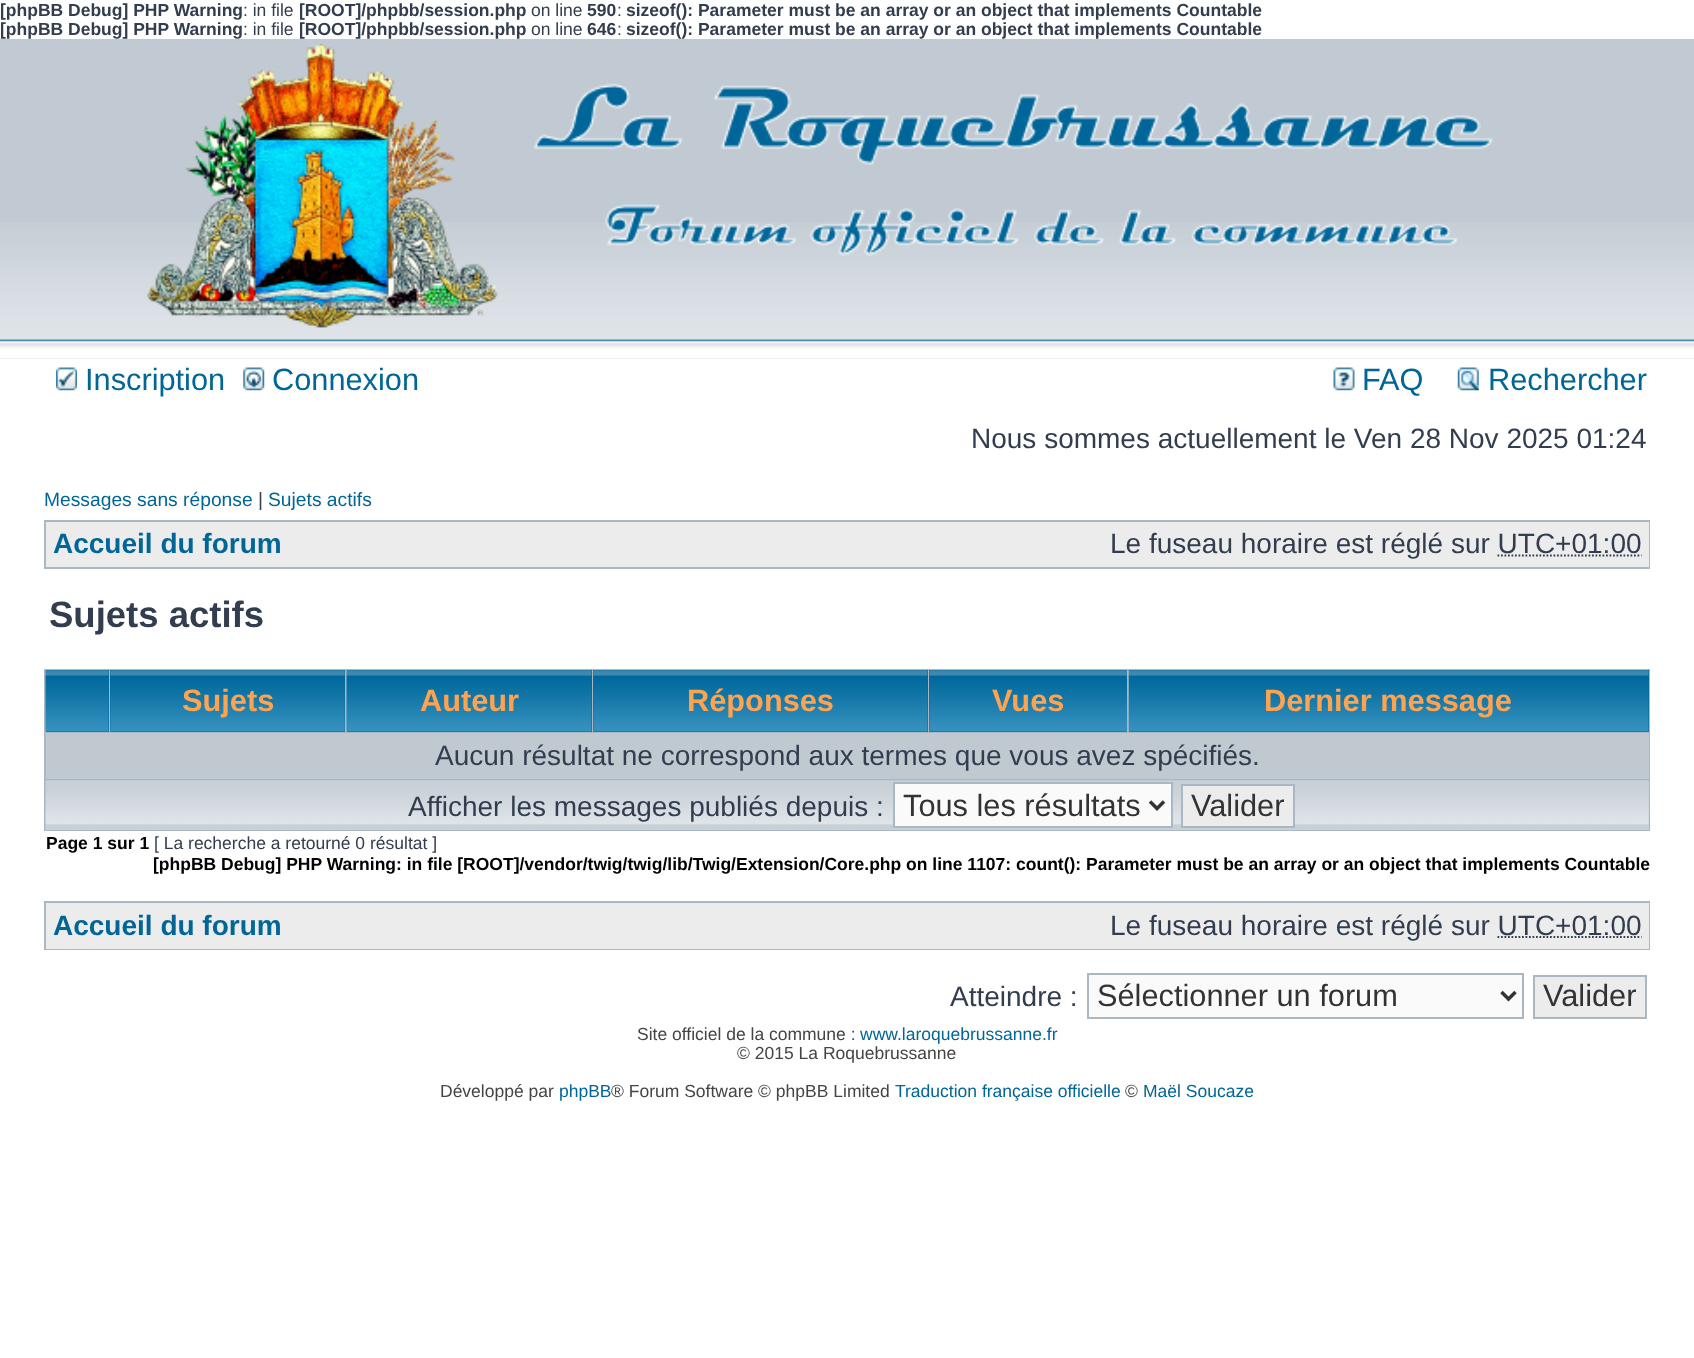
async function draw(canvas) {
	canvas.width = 1694;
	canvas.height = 1358;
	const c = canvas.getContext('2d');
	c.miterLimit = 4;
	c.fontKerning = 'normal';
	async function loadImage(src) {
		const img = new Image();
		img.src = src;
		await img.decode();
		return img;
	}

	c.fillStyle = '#fff';
	c.fillRect(0, 0, 1694, 1358);
	c.font = 'bold 17.5px Liberation Sans';
	c.fillStyle = '#323d4f';
	c.fillText('[phpBB Debug] PHP Warning', 0, 16);
	c.font = '17.5px Liberation Sans';
	c.fillText(': in file', 243, 16);
	c.font = 'bold 17.5px Liberation Sans';
	c.fillText('[ROOT]/phpbb/session.php', 299, 16);
	c.font = '17.5px Liberation Sans';
	c.fillText('on line', 531, 16);
	c.font = 'bold 17.5px Liberation Sans';
	c.fillText('590', 587, 16);
	c.font = '17.5px Liberation Sans';
	c.fillText(':', 617, 16);
	c.font = 'bold 17.5px Liberation Sans';
	c.fillText('sizeof(): Parameter must be an array or an object that implements Countable', 626, 16);
	c.fillText('[phpBB Debug] PHP Warning', 0, 35);
	c.font = '17.5px Liberation Sans';
	c.fillText(': in file', 243, 35);
	c.font = 'bold 17.5px Liberation Sans';
	c.fillText('[ROOT]/phpbb/session.php', 299, 35);
	c.font = '17.5px Liberation Sans';
	c.fillText('on line', 531, 35);
	c.font = 'bold 17.5px Liberation Sans';
	c.fillText('646', 587, 35);
	c.font = '17.5px Liberation Sans';
	c.fillText(':', 617, 35);
	c.font = 'bold 17.5px Liberation Sans';
	c.fillText('sizeof(): Parameter must be an array or an object that implements Countable', 626, 35);
	c.fillStyle = '#c1cad2';
	c.fillRect(0, 39, 1694, 320);
	c.drawImage(await loadImage('img1.png'), 0, 222, 1694, 137);
	c.drawImage(await loadImage('img2.png'), 147, 43, 1346, 285);
	c.drawImage(await loadImage('img3.png'), 56, 367, 21, 24);
	c.font = '30.75px Liberation Sans';
	c.fillStyle = '#006597';
	c.fillText('Inscription', 85, 390);
	c.drawImage(await loadImage('img4.png'), 243, 367, 22, 24);
	c.fillText('Connexion', 272, 390);
	c.drawImage(await loadImage('img5.png'), 1333, 367, 22, 24);
	c.fillText('FAQ', 1362, 390);
	c.drawImage(await loadImage('img6.png'), 1457, 367, 22, 24);
	c.fillText('Rechercher', 1488, 390);
	c.font = '28px Liberation Sans';
	c.fillStyle = '#323d4f';
	c.fillText('Nous sommes actuellement le Ven 28 Nov 2025 01:24', 971, 448);
	c.font = '19.25px Liberation Sans';
	c.fillStyle = '#006597';
	c.fillText('Messages sans réponse', 44, 506);
	c.fillStyle = '#323d4f';
	c.fillText('|', 258, 506);
	c.fillStyle = '#006597';
	c.fillText('Sujets actifs', 268, 506);
	c.fillStyle = '#a9b8c2';
	c.fillRect(44, 520, 1606, 49);
	c.fillStyle = '#ececec';
	c.fillRect(46, 522, 1603, 45);
	c.font = 'bold 28px Liberation Sans';
	c.fillStyle = '#006597';
	c.fillText('Accueil du forum', 53, 553);
	c.font = '28px Liberation Sans';
	c.fillStyle = '#323d4f';
	c.fillText('Le fuseau horaire est réglé sur UTC+01:00', 1110, 553);
	c.beginPath();
	c.moveTo(1497.5, 555.5);
	c.lineTo(1641.5, 555.5);
	c.strokeStyle = '#323d4f';
	c.lineWidth = 1.8;
	c.setLineDash([1.75, 1.75]);
	c.stroke();
	c.font = 'bold 36.5px Liberation Sans';
	c.fillText('Sujets actifs', 49, 627);
	c.fillStyle = '#a9b8c2';
	c.fillRect(44, 669, 1606, 162);
	c.fillStyle = '#069';
	c.fillRect(46, 670, 63, 62);
	c.drawImage(await loadImage('img7.png'), 45, 670, 64, 62);
	c.fillRect(110, 670, 235, 62);
	c.drawImage(await loadImage('img8.png'), 110, 670, 235, 62);
	c.font = 'bold 30.75px Liberation Sans';
	c.fillStyle = '#ffa34f';
	c.fillText('Sujets', 182, 711);
	c.fillStyle = '#069';
	c.fillRect(347, 670, 245, 62);
	c.drawImage(await loadImage('img9.png'), 346, 670, 246, 62);
	c.fillStyle = '#ffa34f';
	c.fillText('Auteur', 420, 711);
	c.fillStyle = '#069';
	c.fillRect(593, 670, 335, 62);
	c.drawImage(await loadImage('img10.png'), 593, 670, 335, 62);
	c.fillStyle = '#ffa34f';
	c.fillText('Réponses', 687, 711);
	c.fillStyle = '#069';
	c.fillRect(929, 670, 198, 62);
	c.drawImage(await loadImage('img11.png'), 929, 670, 198, 62);
	c.fillStyle = '#ffa34f';
	c.fillText('Vues', 992, 711);
	c.fillStyle = '#069';
	c.fillRect(1129, 670, 520, 62);
	c.drawImage(await loadImage('img12.png'), 1128, 670, 521, 62);
	c.fillStyle = '#ffa34f';
	c.fillText('Dernier message', 1264, 711);
	c.fillStyle = '#c0c8d0';
	c.fillRect(46, 733, 1603, 46);
	c.font = '28px Liberation Sans';
	c.fillStyle = '#323d4f';
	c.fillText('Aucun résultat ne correspond aux termes que vous avez spécifiés.', 435, 765);
	c.fillStyle = '#c7d0d7';
	c.fillRect(46, 781, 1603, 49);
	c.drawImage(await loadImage('img13.png'), 45, 780, 1604, 50);
	c.fillStyle = '#323d4f';
	c.fillText('Afficher les messages publiés depuis :', 408, 816);
	c.fillStyle = '#fafafa';
	c.beginPath();
	c.rect(894, 783, 278, 44);
	c.fill();
	c.strokeStyle = '#a9b8c2';
	c.lineWidth = 2;
	c.setLineDash([]);
	c.stroke();
	c.beginPath();
	c.moveTo(1150, 801.5);
	c.lineTo(1157, 808.5);
	c.lineTo(1164, 801.5);
	c.strokeStyle = '#333';
	c.lineWidth = 3.5;
	c.stroke();
	c.font = '30.75px Liberation Sans';
	c.fillStyle = '#333';
	c.fillText('Tous les résultats', 903, 816);
	c.fillStyle = '#ececec';
	c.beginPath();
	c.rect(1182, 785, 112, 42);
	c.fill();
	c.strokeStyle = '#a9b8c2';
	c.lineWidth = 2;
	c.stroke();
	c.fillStyle = '#333';
	c.fillText('Valider', 1191, 816);
	c.font = 'bold 17.5px Liberation Sans';
	c.fillStyle = '#000';
	c.fillText('Page 1 sur 1', 46, 849);
	c.font = '17.5px Liberation Sans';
	c.fillStyle = '#323d4f';
	c.fillText('[ La recherche a retourné 0 résultat ]', 154, 849);
	c.font = 'bold 17.5px Liberation Sans';
	c.fillStyle = '#000';
	c.fillText('[phpBB Debug] PHP Warning: in file [ROOT]/vendor/twig/twig/lib/Twig/Extension/Core.php on line 1107: count(): Parameter must be an array or an object that implements Countable', 153, 870);
	c.fillStyle = '#a9b8c2';
	c.fillRect(44, 901, 1606, 49);
	c.fillStyle = '#ececec';
	c.fillRect(46, 903, 1603, 46);
	c.font = 'bold 28px Liberation Sans';
	c.fillStyle = '#006597';
	c.fillText('Accueil du forum', 53, 935);
	c.font = '28px Liberation Sans';
	c.fillStyle = '#323d4f';
	c.fillText('Le fuseau horaire est réglé sur UTC+01:00', 1110, 935);
	c.beginPath();
	c.moveTo(1497.5, 937);
	c.lineTo(1641.5, 937);
	c.strokeStyle = '#323d4f';
	c.lineWidth = 1.8;
	c.setLineDash([1.75, 1.75]);
	c.stroke();
	c.fillText('Atteindre :', 950, 1006);
	c.fillStyle = '#fafafa';
	c.beginPath();
	c.rect(1088, 974, 435, 44);
	c.fill();
	c.strokeStyle = '#a9b8c2';
	c.lineWidth = 2;
	c.setLineDash([]);
	c.stroke();
	c.beginPath();
	c.moveTo(1501.5, 992);
	c.lineTo(1508.5, 999);
	c.lineTo(1515.5, 992);
	c.strokeStyle = '#333';
	c.lineWidth = 3.5;
	c.stroke();
	c.font = '30.75px Liberation Sans';
	c.fillStyle = '#333';
	c.fillText('Sélectionner un forum', 1097, 1006);
	c.fillStyle = '#ececec';
	c.beginPath();
	c.rect(1534, 976, 112, 42);
	c.fill();
	c.strokeStyle = '#a9b8c2';
	c.lineWidth = 2;
	c.stroke();
	c.fillStyle = '#333';
	c.fillText('Valider', 1543, 1006);
	c.font = '17.5px Liberation Sans';
	c.fillStyle = '#444';
	c.fillText('Site officiel de la commune :', 637, 1040);
	c.fillStyle = '#006597';
	c.fillText('www.laroquebrussanne.fr', 860, 1040);
	c.fillStyle = '#444';
	c.fillText('© 2015 La Roquebrussanne', 737, 1059);
	c.fillText('Développé par', 440, 1097);
	c.fillStyle = '#006597';
	c.fillText('phpBB', 559, 1097);
	c.fillStyle = '#444';
	c.fillText('® Forum Software © phpBB Limited', 611, 1097);
	c.fillStyle = '#006597';
	c.fillText('Traduction française officielle', 895, 1097);
	c.fillStyle = '#444';
	c.fillText('©', 1125, 1097);
	c.fillStyle = '#006597';
	c.fillText('Maël Soucaze', 1143, 1097);
}

draw(document.querySelector('canvas'));
